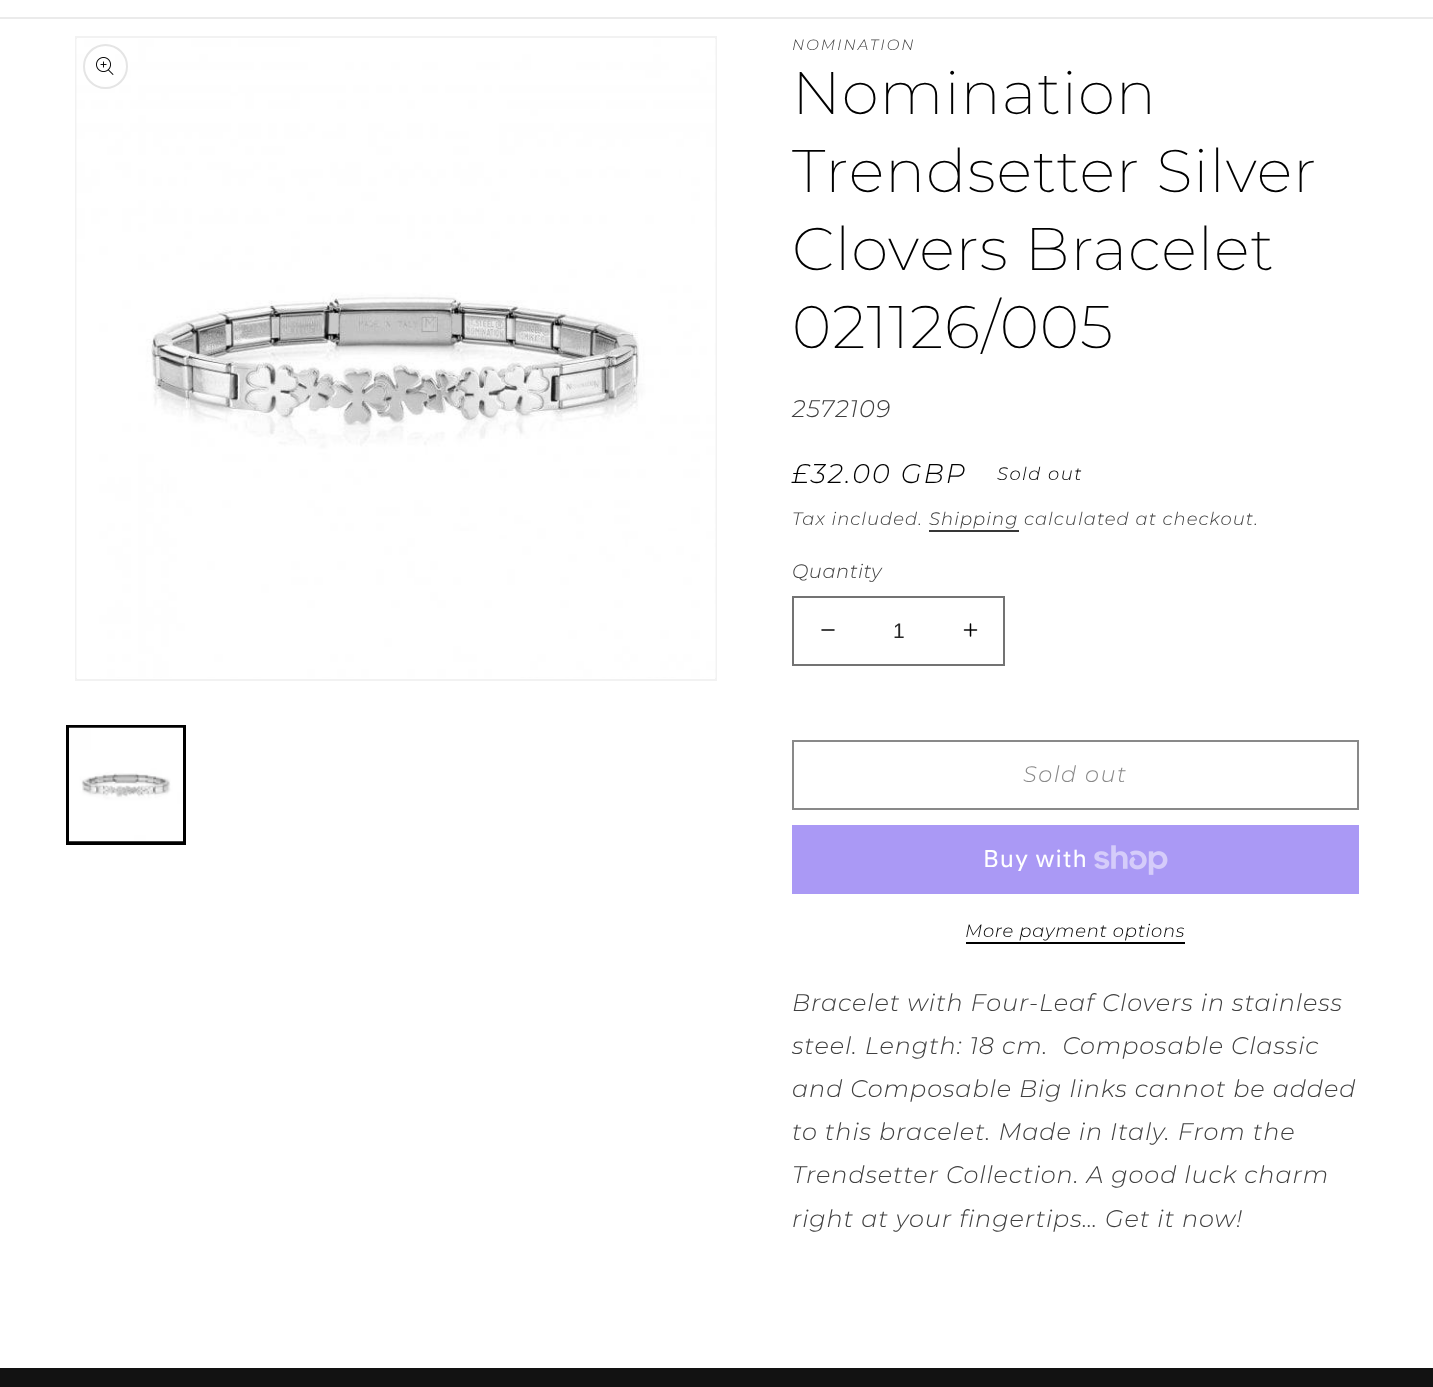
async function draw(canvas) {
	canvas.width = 1433;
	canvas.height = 1387;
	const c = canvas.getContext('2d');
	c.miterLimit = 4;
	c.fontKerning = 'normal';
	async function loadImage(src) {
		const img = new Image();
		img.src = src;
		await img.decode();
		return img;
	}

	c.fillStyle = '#fff';
	c.fillRect(0, 0, 1433, 1387);
	c.fillStyle = '#ebebeb';
	c.fillRect(0, 17, 1433, 2);
	c.strokeStyle = '#f2f2f2';
	c.lineWidth = 2;
	c.strokeRect(76, 37, 640, 643);
	c.drawImage(await loadImage('img1.png'), 76, 39, 640, 639);
	c.beginPath();
	c.arc(105.5, 66.5, 21.5, 0, 2 * Math.PI);
	c.strokeStyle = '#e5e5e5';
	c.stroke();
	c.drawImage(await loadImage('img2.png'), 96, 57, 18, 18);
	c.strokeStyle = '#000';
	c.strokeRect(67, 726, 118, 118);
	c.strokeRect(69, 727, 115, 115);
	c.drawImage(await loadImage('img3.png'), 69, 727, 114, 115);
	c.letterSpacing = '2px';
	c.font = 'italic 300 15px Montserrat';
	c.fillStyle = '#404040';
	c.fillText('NOMINATION', 792, 50);
	c.letterSpacing = '0.9px';
	c.font = '200 60px Montserrat';
	c.fillStyle = '#000';
	for (const [text, x, y] of [
		['Nomination', 792, 114],
		['Trendsetter Silver', 792, 192],
		['Clovers Bracelet', 792, 270],
		['021126/005', 792, 348],
	]) {
		c.fillText(text, x, y);
	}
	c.font = 'italic 300 24px Montserrat';
	c.fillStyle = '#404040';
	c.fillText('2572109', 792, 417);
	c.letterSpacing = '2px';
	c.font = 'italic 300 27px Montserrat';
	c.fillStyle = '#000';
	c.fillText('£32.00 GBP', 792, 483);
	c.letterSpacing = '1.5px';
	c.font = 'italic 300 18px Montserrat';
	c.fillText('Sold out', 997, 480);
	c.letterSpacing = '1.05px';
	c.fillStyle = '#404040';
	c.fillText('Tax included.', 792, 525);
	c.fillStyle = '#363636';
	c.fillText('Shipping', 929, 525);
	c.fillRect(929, 530, 90, 2);
	c.fillStyle = '#404040';
	c.fillText('calculated at checkout.', 1024, 525);
	c.letterSpacing = '0.5px';
	c.font = 'italic 300 19.5px Montserrat';
	c.fillText('Quantity', 792, 578);
	c.drawImage(await loadImage('img4.png'), 821, 629, 14, 2);
	c.drawImage(await loadImage('img5.png'), 963, 623, 15, 14);
	c.strokeStyle = '#737373';
	c.strokeRect(793, 597, 211, 68);
	c.letterSpacing = '0px';
	c.font = '21px Liberation Sans';
	c.fillStyle = '#262626';
	c.fillText('1', 893, 638);
	c.strokeStyle = '#898989';
	c.strokeRect(793, 741, 565, 68);
	c.letterSpacing = '1.5px';
	c.font = 'italic 300 22.5px Montserrat';
	c.fillStyle = '#898989';
	c.fillText('Sold out', 1023, 782);
	c.fillStyle = '#aa99f5';
	c.fillRect(792, 825, 567, 69);
	c.letterSpacing = '0.9px';
	c.font = '24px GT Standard';
	c.fillStyle = '#fff';
	c.fillText('Buy with', 983, 867);
	c.drawImage(await loadImage('img6.png'), 1094, 845, 74, 30);
	c.letterSpacing = '0.75px';
	c.font = 'italic 300 18px Montserrat';
	c.fillStyle = '#000';
	c.fillText('More payment options', 965, 937);
	c.fillRect(966, 942, 219, 2);
	c.letterSpacing = '0.9px';
	c.font = 'italic 300 24px Montserrat';
	c.fillStyle = '#404040';
	for (const [text, x, y] of [
		['Bracelet with Four-Leaf Clovers in stainless', 792, 1011],
		['steel. Length: 18 cm.  Composable Classic', 792, 1054],
		['and Composable Big links cannot be added', 792, 1097],
		['to this bracelet. Made in Italy. From the', 792, 1140],
		['Trendsetter Collection. A good luck charm', 792, 1183],
		['right at your fingertips… Get it now!', 792, 1227],
	]) {
		c.fillText(text, x, y);
	}
	c.fillStyle = '#121212';
	c.fillRect(0, 1368, 1433, 19);
}

draw(document.querySelector('canvas'));
